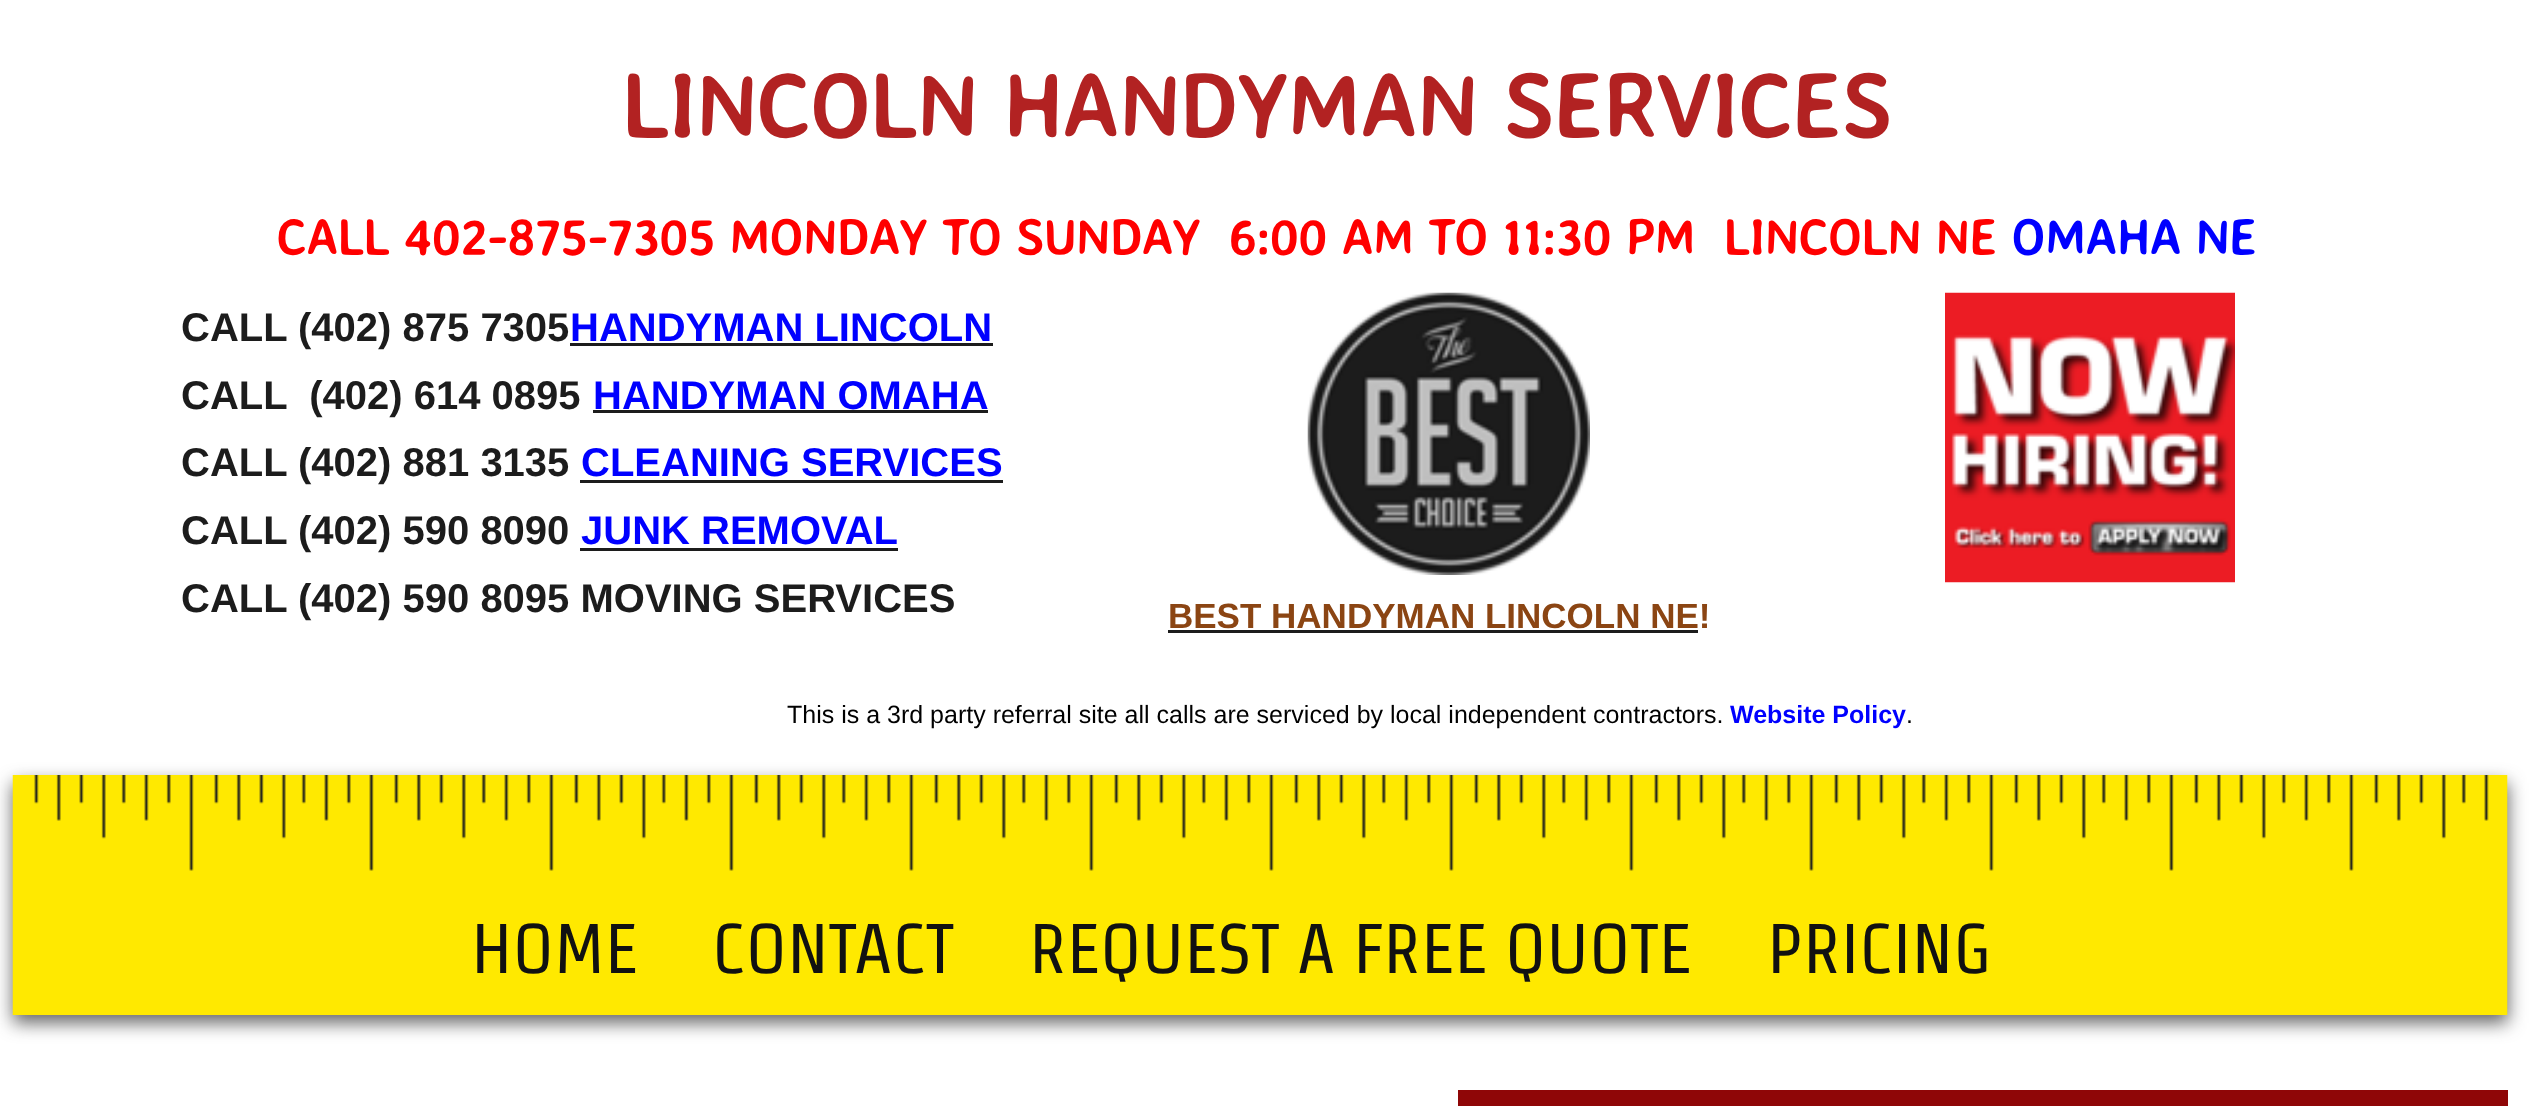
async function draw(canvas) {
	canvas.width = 2537;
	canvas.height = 1106;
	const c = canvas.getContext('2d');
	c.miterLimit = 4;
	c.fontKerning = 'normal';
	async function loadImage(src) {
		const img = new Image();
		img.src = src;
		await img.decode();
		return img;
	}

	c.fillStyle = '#fff';
	c.fillRect(0, 0, 2537, 1106);
	c.font = 'bold 90px Averia Sans Libre';
	c.fillStyle = '#b22222';
	c.fillText('LINCOLN HANDYMAN SERVICES', 621, 138);
	c.font = 'bold 50px Averia Sans Libre';
	c.fillStyle = '#f00';
	c.fillText('CALL 402-875-7305 MONDAY TO SUNDAY  6:00 AM TO 11:30 PM  LINCOLN NE', 276, 255);
	c.fillStyle = '#00f';
	c.fillText('OMAHA NE', 2011, 255);
	c.font = 'bold 40px Liberation Sans';
	c.fillStyle = '#1c1c1c';
	c.fillText('CALL (402) 875 7305', 181, 341);
	c.fillRect(570, 343, 423, 3);
	c.fillStyle = '#00f';
	c.fillText('HANDYMAN LINCOLN', 570, 341);
	c.fillStyle = '#1c1c1c';
	c.fillText('CALL  (402) 614 0895', 181, 409);
	c.fillStyle = '#00f';
	c.fillText('HANDYMAN OMAHA', 593, 409);
	c.fillStyle = '#1c1c1c';
	c.fillRect(593, 410, 395, 3);
	c.fillText('CALL (402) 881 3135', 181, 476);
	c.fillStyle = '#00f';
	c.fillText('CLEANING SERVICES', 581, 476);
	c.fillStyle = '#1c1c1c';
	c.fillRect(580, 480, 423, 3);
	c.fillText('CALL (402) 590 8090', 181, 544);
	c.fillStyle = '#00f';
	c.fillText('JUNK REMOVAL', 581, 544);
	c.fillStyle = '#1c1c1c';
	c.fillRect(580, 548, 318, 3);
	c.fillText('CALL (402) 590 8095 MOVING SERVICES', 181, 612);
	c.drawImage(await loadImage('img1.png'), 1307, 292, 283, 283);
	c.drawImage(await loadImage('img2.png'), 1945, 292, 290, 291);
	c.font = 'bold 35px Liberation Sans';
	c.fillStyle = '#8b4513';
	c.fillText('BEST HANDYMAN LINCOLN NE!', 1168, 628);
	c.fillStyle = '#1c1c1c';
	c.fillRect(1168, 630, 530, 3);
	c.font = '25px Liberation Sans';
	c.fillStyle = '#000';
	c.fillText('This is a 3rd party referral site all calls are serviced by local independent contractors.', 787, 723);
	c.font = 'bold 25px Liberation Sans';
	c.fillStyle = '#00f';
	c.fillText('Website Policy', 1730, 723);
	c.font = '25px Liberation Sans';
	c.fillStyle = '#000';
	c.fillText('.', 1906, 723);
	c.fillStyle = '#323232bf';
	c.filter = 'blur(9px)';
	c.beginPath();
	c.rect(13, 783, 2495, 240);
	c.fill();
	c.filter = 'none';
	c.drawImage(await loadImage('img3.png'), 12, 775, 2496, 240);
	c.font = '70px Strait';
	c.fillStyle = '#111';
	for (const [text, x, y] of [
		['HOME', 471, 973],
		['CONTACT', 712, 973],
		['REQUEST A FREE QUOTE', 1029, 973],
		['PRICING', 1767, 973],
	]) {
		c.fillText(text, x, y);
	}
	c.fillStyle = '#8f0607';
	c.fillRect(1458, 1090, 1050, 16);
}

draw(document.querySelector('canvas'));
